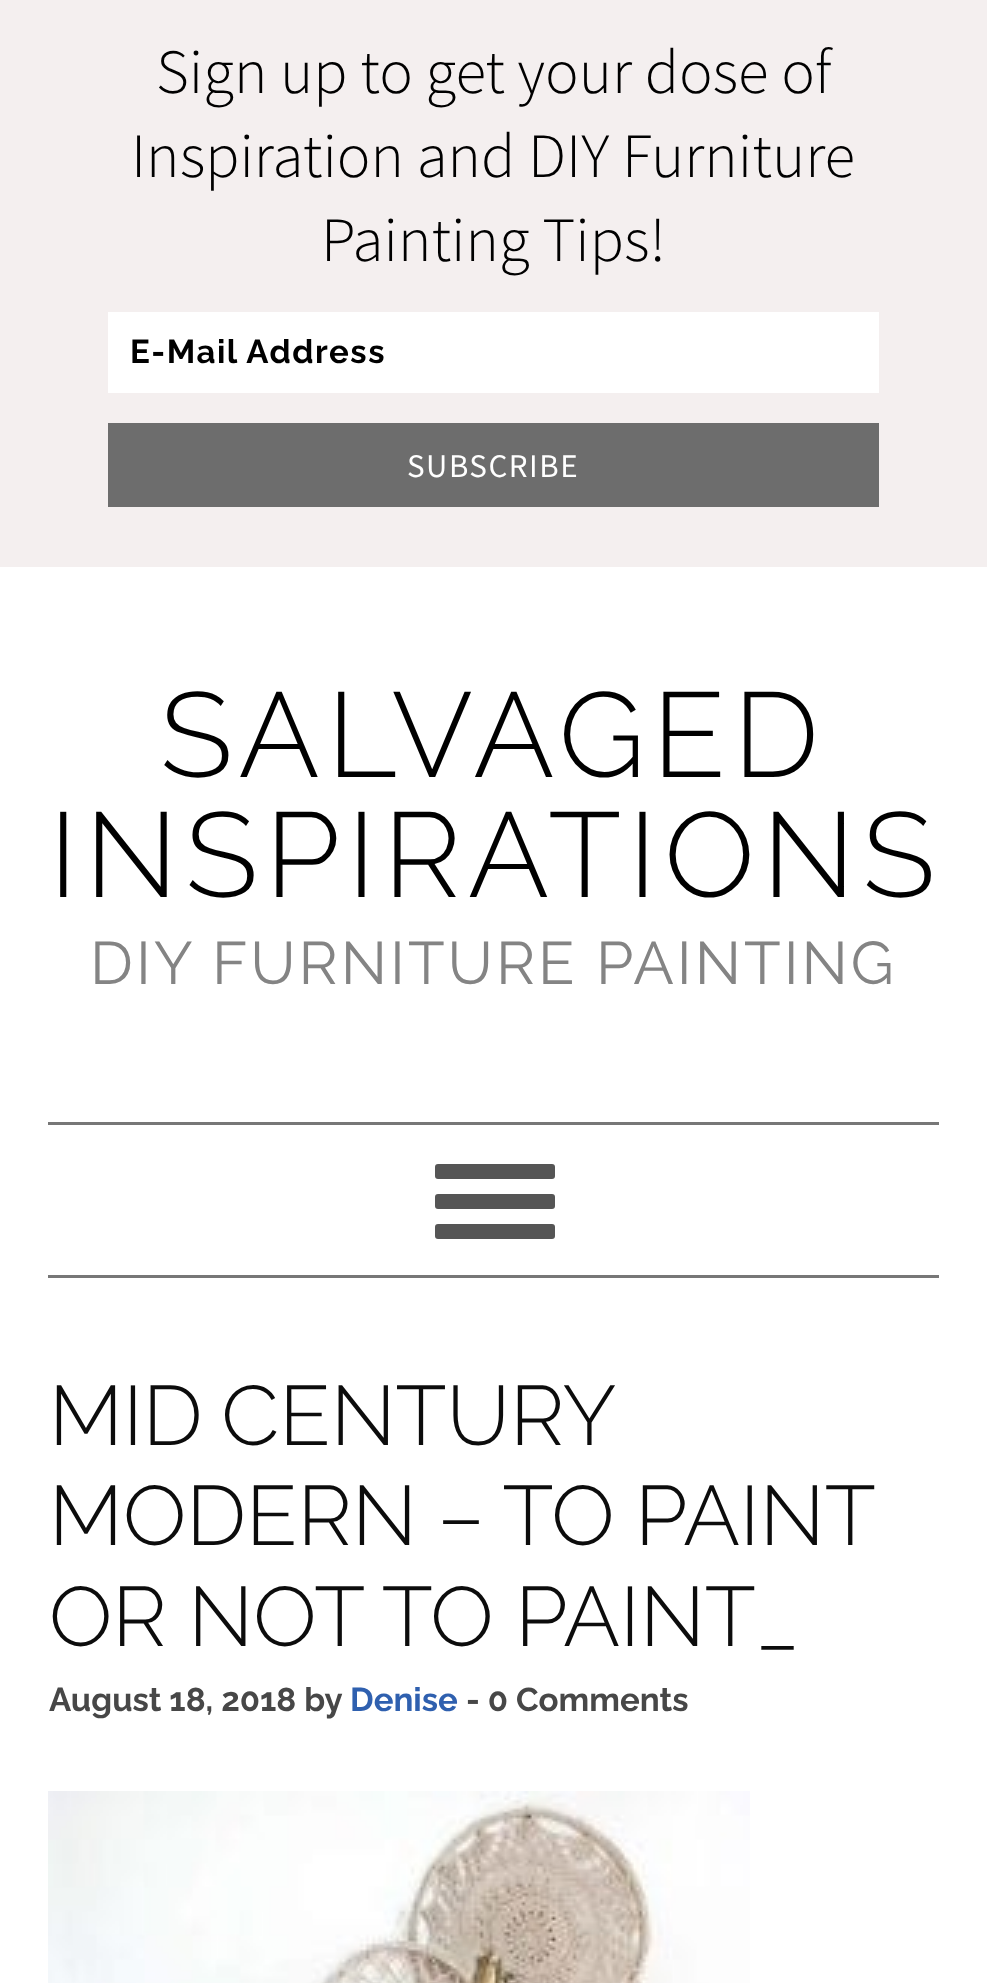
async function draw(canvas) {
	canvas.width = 987;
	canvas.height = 1983;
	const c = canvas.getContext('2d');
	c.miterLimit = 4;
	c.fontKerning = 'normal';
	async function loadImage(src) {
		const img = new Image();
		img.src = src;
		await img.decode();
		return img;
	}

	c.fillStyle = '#fff';
	c.fillRect(0, 0, 987, 1983);
	c.fillStyle = '#f4efef';
	c.fillRect(0, 0, 987, 567);
	c.font = '300 63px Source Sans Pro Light';
	c.fillStyle = '#000';
	for (const [text, x, y] of [
		['Sign up to get your dose of', 156, 93],
		['Inspiration and DIY Furniture', 131, 177],
		['Painting Tips!', 321, 261],
	]) {
		c.fillText(text, x, y);
	}
	c.fillStyle = '#fff';
	c.fillRect(108, 312, 771, 81);
	c.letterSpacing = '1.5px';
	c.font = 'bold 33px Raleway';
	c.fillStyle = '#000';
	c.fillText('E-Mail Address', 130, 363);
	c.fillStyle = '#6d6d6d';
	c.fillRect(108, 423, 771, 84);
	c.font = '33px Source Sans Pro';
	c.fillStyle = '#fff';
	c.fillText('SUBSCRIBE', 407, 477);
	c.letterSpacing = '7.5px';
	c.font = '300 120px Raleway';
	c.fillStyle = '#000';
	c.fillText('SALVAGED', 160, 777);
	c.fillText('INSPIRATIONS', 49, 897);
	c.letterSpacing = '3px';
	c.font = '60px Raleway';
	c.fillStyle = '#848484';
	c.fillText('DIY FURNITURE PAINTING', 90, 984);
	c.fillStyle = '#777';
	c.fillRect(48, 1122, 891, 3);
	c.fillRect(48, 1275, 891, 3);
	c.fillStyle = '#555';
	c.beginPath();
	c.roundRect(435, 1194, 120, 15, 3);
	c.fill();
	c.beginPath();
	c.roundRect(435, 1164, 120, 15, 3);
	c.fill();
	c.beginPath();
	c.roundRect(435, 1224, 120, 15, 3);
	c.fill();
	c.letterSpacing = '0px';
	c.wordSpacing = '-3px';
	c.font = '300 84px Raleway';
	c.fillStyle = '#0c0c0c';
	c.fillText('MID CENTURY', 49, 1445);
	c.wordSpacing = '-1px';
	c.fillText('MODERN – TO PAINT', 49, 1545);
	c.wordSpacing = '0px';
	c.fillText('OR NOT TO PAINT_', 49, 1646);
	c.font = 'bold 33px Raleway';
	c.fillStyle = '#474747';
	c.fillText('August 18, 2018 by', 49, 1711);
	c.fillStyle = '#2f60af';
	c.fillText('Denise', 350, 1711);
	c.fillStyle = '#474747';
	c.fillText('- 0 Comments', 466, 1711);
	c.drawImage(await loadImage('img1.png'), 48, 1791, 702, 192);
}

draw(document.querySelector('canvas'));
